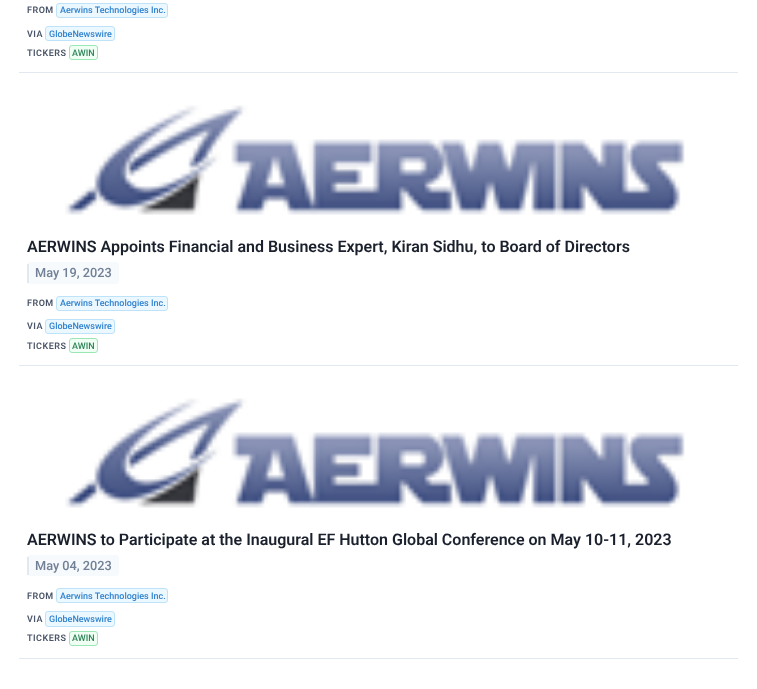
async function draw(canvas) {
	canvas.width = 757;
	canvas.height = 689;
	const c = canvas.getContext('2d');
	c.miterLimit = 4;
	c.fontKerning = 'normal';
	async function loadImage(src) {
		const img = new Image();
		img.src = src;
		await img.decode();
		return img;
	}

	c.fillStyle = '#fff';
	c.fillRect(0, 0, 757, 689);
	c.fillStyle = '#e2e8f0';
	c.fillRect(19, 72, 719, 1);
	c.letterSpacing = '0.5px';
	c.font = '600 9px Roboto';
	c.fillStyle = '#4a5568';
	c.fillText('FROM', 27, 13);
	c.fillStyle = '#ebf8ff';
	c.beginPath();
	c.roundRect(56.5, 3.5, 111, 14, 2.5);
	c.fill();
	c.strokeStyle = '#bee3f8';
	c.stroke();
	c.letterSpacing = '0px';
	c.font = '500 9px Roboto';
	c.fillStyle = '#3182ce';
	c.fillText('Aerwins Technologies Inc.', 60, 13);
	c.letterSpacing = '0.5px';
	c.font = '600 9px Roboto';
	c.fillStyle = '#4a5568';
	c.fillText('VIA', 27, 37);
	c.fillStyle = '#ebf8ff';
	c.beginPath();
	c.roundRect(45.5, 26.5, 69, 14, 2.5);
	c.fill();
	c.stroke();
	c.letterSpacing = '0px';
	c.font = '500 9px Roboto';
	c.fillStyle = '#3182ce';
	c.fillText('GlobeNewswire', 49, 37);
	c.letterSpacing = '0.5px';
	c.font = '600 9px Roboto';
	c.fillStyle = '#4a5568';
	c.fillText('TICKERS', 27, 56);
	c.fillStyle = '#f0fff4';
	c.beginPath();
	c.roundRect(69.5, 45.5, 28, 14, 2.5);
	c.fill();
	c.strokeStyle = '#9ae6b4';
	c.stroke();
	c.letterSpacing = '0px';
	c.font = '500 9px Roboto';
	c.fillStyle = '#2f855a';
	c.fillText('AWIN', 72, 56);
	c.fillStyle = '#e2e8f0';
	c.fillRect(19, 365, 719, 1);
	c.drawImage(await loadImage('img1.png'), 65, 105, 620, 110);
	c.font = '600 16px Roboto';
	c.fillStyle = '#1a202c';
	c.fillText('AERWINS Appoints Financial and Business Expert, Kiran Sidhu, to Board of Directors', 27, 252);
	c.fillStyle = '#f7fafc';
	c.beginPath();
	c.roundRect(27, 262, 92, 22, 3);
	c.fill();
	c.fillStyle = '#e2e8f0';
	c.fillRect(27, 264, 2, 19);
	c.font = '500 12.75px Roboto';
	c.fillStyle = '#718096';
	c.fillText('May 19, 2023', 35, 277);
	c.letterSpacing = '0.5px';
	c.font = '600 9px Roboto';
	c.fillStyle = '#4a5568';
	c.fillText('FROM', 27, 306);
	c.fillStyle = '#ebf8ff';
	c.beginPath();
	c.roundRect(56.5, 296.5, 111, 14, 2.5);
	c.fill();
	c.strokeStyle = '#bee3f8';
	c.stroke();
	c.letterSpacing = '0px';
	c.font = '500 9px Roboto';
	c.fillStyle = '#3182ce';
	c.fillText('Aerwins Technologies Inc.', 60, 306);
	c.letterSpacing = '0.5px';
	c.font = '600 9px Roboto';
	c.fillStyle = '#4a5568';
	c.fillText('VIA', 27, 329);
	c.fillStyle = '#ebf8ff';
	c.beginPath();
	c.roundRect(45.5, 319.5, 69, 14, 2.5);
	c.fill();
	c.stroke();
	c.letterSpacing = '0px';
	c.font = '500 9px Roboto';
	c.fillStyle = '#3182ce';
	c.fillText('GlobeNewswire', 49, 329);
	c.letterSpacing = '0.5px';
	c.font = '600 9px Roboto';
	c.fillStyle = '#4a5568';
	c.fillText('TICKERS', 27, 349);
	c.fillStyle = '#f0fff4';
	c.beginPath();
	c.roundRect(69.5, 338.5, 28, 14, 2.5);
	c.fill();
	c.strokeStyle = '#9ae6b4';
	c.stroke();
	c.letterSpacing = '0px';
	c.font = '500 9px Roboto';
	c.fillStyle = '#2f855a';
	c.fillText('AWIN', 72, 349);
	c.fillStyle = '#e2e8f0';
	c.fillRect(19, 658, 719, 1);
	c.drawImage(await loadImage('img1.png'), 65, 398, 620, 110);
	c.font = '600 16px Roboto';
	c.fillStyle = '#1a202c';
	c.fillText('AERWINS to Participate at the Inaugural EF Hutton Global Conference on May 10-11, 2023', 27, 545);
	c.fillStyle = '#f7fafc';
	c.beginPath();
	c.roundRect(27, 555, 92, 21, 3);
	c.fill();
	c.fillStyle = '#e2e8f0';
	c.fillRect(27, 557, 2, 18);
	c.font = '500 12.75px Roboto';
	c.fillStyle = '#718096';
	c.fillText('May 04, 2023', 35, 570);
	c.letterSpacing = '0.5px';
	c.font = '600 9px Roboto';
	c.fillStyle = '#4a5568';
	c.fillText('FROM', 27, 599);
	c.fillStyle = '#ebf8ff';
	c.beginPath();
	c.roundRect(56.5, 588.5, 111, 14, 2.5);
	c.fill();
	c.strokeStyle = '#bee3f8';
	c.stroke();
	c.letterSpacing = '0px';
	c.font = '500 9px Roboto';
	c.fillStyle = '#3182ce';
	c.fillText('Aerwins Technologies Inc.', 60, 599);
	c.letterSpacing = '0.5px';
	c.font = '600 9px Roboto';
	c.fillStyle = '#4a5568';
	c.fillText('VIA', 27, 622);
	c.fillStyle = '#ebf8ff';
	c.beginPath();
	c.roundRect(45.5, 611.5, 69, 15, 2.5);
	c.fill();
	c.stroke();
	c.letterSpacing = '0px';
	c.font = '500 9px Roboto';
	c.fillStyle = '#3182ce';
	c.fillText('GlobeNewswire', 49, 622);
	c.letterSpacing = '0.5px';
	c.font = '600 9px Roboto';
	c.fillStyle = '#4a5568';
	c.fillText('TICKERS', 27, 641);
	c.fillStyle = '#f0fff4';
	c.beginPath();
	c.roundRect(69.5, 631.5, 28, 14, 2.5);
	c.fill();
	c.strokeStyle = '#9ae6b4';
	c.stroke();
	c.letterSpacing = '0px';
	c.font = '500 9px Roboto';
	c.fillStyle = '#2f855a';
	c.fillText('AWIN', 72, 641);
}

draw(document.querySelector('canvas'));
